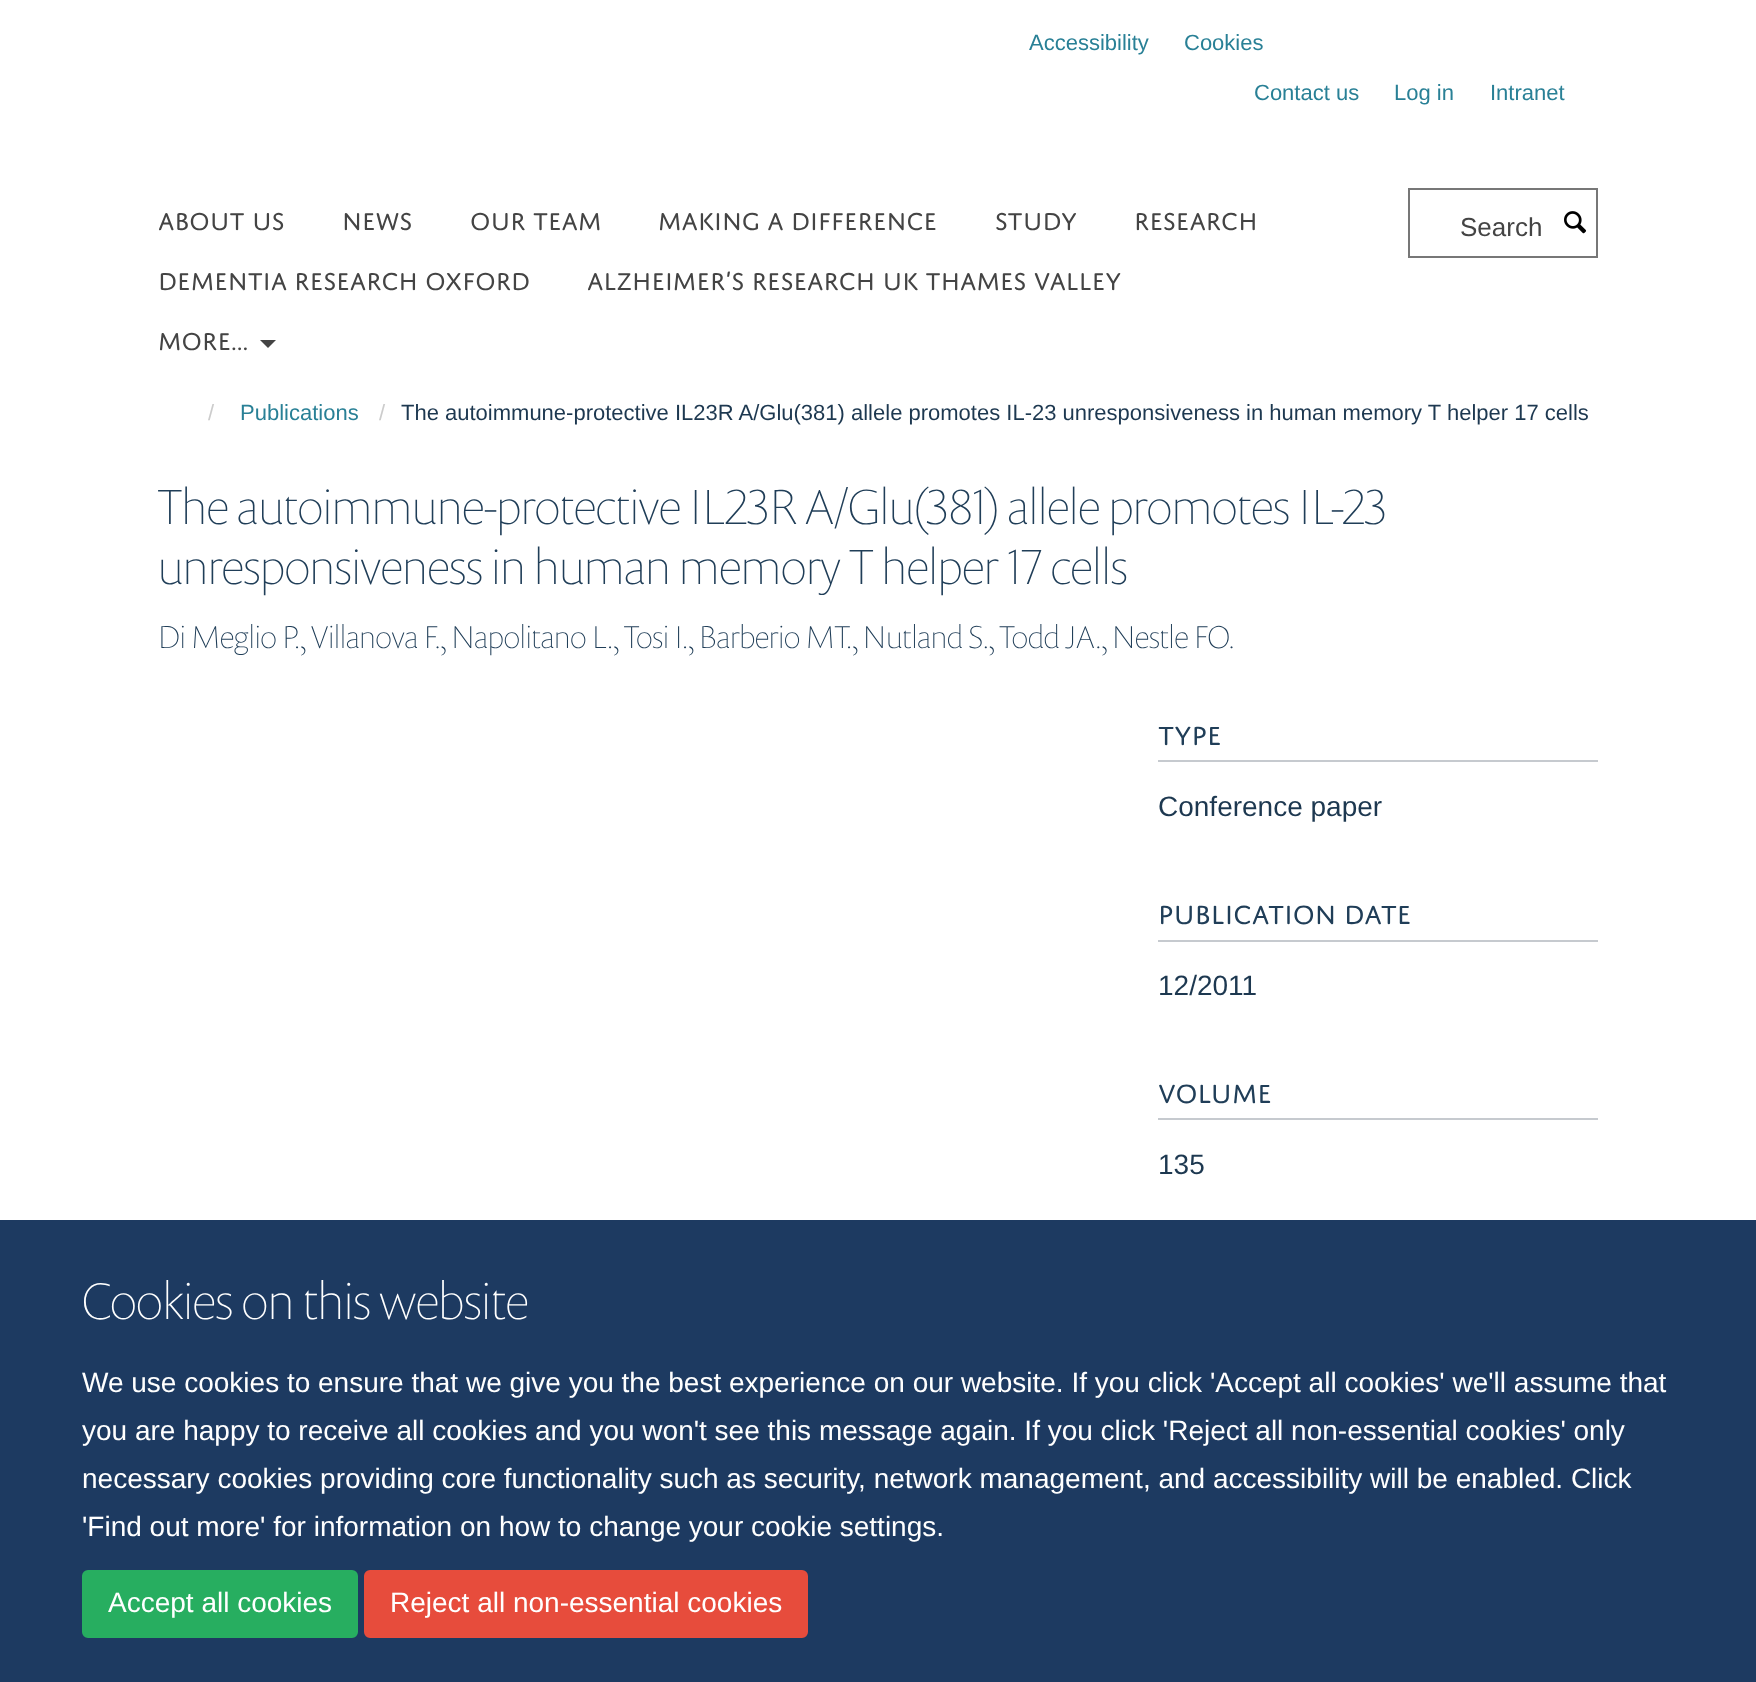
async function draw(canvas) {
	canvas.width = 1756;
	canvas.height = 1682;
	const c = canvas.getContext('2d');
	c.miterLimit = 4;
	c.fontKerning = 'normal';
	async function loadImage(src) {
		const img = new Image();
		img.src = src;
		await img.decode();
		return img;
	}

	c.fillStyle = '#fff';
	c.fillRect(0, 0, 1756, 1682);
	c.font = '22px Liberation Sans';
	c.fillStyle = '#298096';
	for (const [text, x, y] of [
		['Accessibility', 1029, 50],
		['Cookies', 1184, 50],
		['Contact us', 1254, 100],
		['Log in', 1394, 100],
		['Intranet', 1490, 100],
	]) {
		c.fillText(text, x, y);
	}
	c.font = '26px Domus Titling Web';
	c.fillStyle = '#444';
	for (const [text, x, y] of [
		['ABOUT US', 158, 230],
		['NEWS', 342, 230],
		['OUR TEAM', 470, 230],
		['MAKING A DIFFERENCE', 658, 230],
		['STUDY', 995, 230],
		['RESEARCH', 1134, 230],
		['DEMENTIA RESEARCH OXFORD', 158, 290],
		['ALZHEIMER’S RESEARCH UK THAMES VALLEY', 587, 290],
		['MORE...', 158, 350],
	]) {
		c.fillText(text, x, y);
	}
	c.beginPath();
	c.moveTo(260, 340);
	c.lineTo(276, 340);
	c.lineTo(268, 348);
	c.closePath();
	c.fill();
	c.strokeStyle = '#777';
	c.lineWidth = 2;
	c.strokeRect(1409, 189, 188, 68);
	c.font = '26px Liberation Sans';
	c.fillText('Search', 1460, 236);
	c.drawImage(await loadImage('img1.png'), 1564, 211, 23, 23);
	c.font = '22px Liberation Sans';
	c.fillStyle = '#ccc';
	c.fillText('/', 208, 420);
	c.fillStyle = '#298096';
	c.fillText('Publications', 240, 420);
	c.fillStyle = '#ccc';
	c.fillText('/', 379, 420);
	c.fillStyle = '#1d3850';
	c.fillText('The autoimmune-protective IL23R A/Glu(381) allele promotes IL-23 unresponsiveness in human memory T helper 17 cells', 401, 420);
	c.font = '100 50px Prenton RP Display';
	c.fillStyle = '#203e58';
	c.fillText('The autoimmune-protective IL23R A/Glu(381) allele promotes IL-23', 158, 524);
	c.fillText('unresponsiveness in human memory T helper 17 cells', 158, 584);
	c.font = '100 32px Prenton RP Display';
	c.fillText('Di Meglio P., Villanova F., Napolitano L., Tosi I., Barberio MT., Nutland S., Todd JA., Nestle FO.', 158, 648);
	c.fillStyle = '#c6cacf';
	c.fillRect(1158, 760, 440, 2);
	c.font = '28px Domus Titling Web';
	c.fillStyle = '#203e58';
	c.fillText('TYPE', 1158, 745);
	c.font = '28px Liberation Sans';
	c.fillStyle = '#1d3850';
	c.fillText('Conference paper', 1158, 816);
	c.fillStyle = '#c6cacf';
	c.fillRect(1158, 940, 440, 2);
	c.font = '28px Domus Titling Web';
	c.fillStyle = '#203e58';
	c.fillText('PUBLICATION DATE', 1158, 924);
	c.font = '28px Liberation Sans';
	c.fillStyle = '#1d3850';
	c.fillText('12/2011', 1158, 995);
	c.fillStyle = '#c6cacf';
	c.fillRect(1158, 1118, 440, 2);
	c.font = '28px Domus Titling Web';
	c.fillStyle = '#203e58';
	c.fillText('VOLUME', 1158, 1103);
	c.font = '28px Liberation Sans';
	c.fillStyle = '#1d3850';
	c.fillText('135', 1158, 1174);
	c.fillStyle = '#1d3a61';
	c.fillRect(0, 1220, 1756, 462);
	c.font = '100 52px Prenton RP Display';
	c.fillStyle = '#fff';
	c.fillText('Cookies on this website', 82, 1319);
	c.font = '28px Liberation Sans';
	for (const [text, x, y] of [
		['We use cookies to ensure that we give you the best experience on our website. If you click \'Accept all cookies\' we\'ll assume that', 82, 1392],
		['you are happy to receive all cookies and you won\'t see this message again. If you click \'Reject all non-essential cookies\' only', 82, 1440],
		['necessary cookies providing core functionality such as security, network management, and accessibility will be enabled. Click', 82, 1488],
		['\'Find out more\' for information on how to change your cookie settings.', 82, 1536],
	]) {
		c.fillText(text, x, y);
	}
	c.fillStyle = '#27ae60';
	c.beginPath();
	c.roundRect(83, 1571, 274, 66, 5);
	c.fill();
	c.strokeStyle = '#27ae60';
	c.stroke();
	c.fillStyle = '#fff';
	c.fillText('Accept all cookies', 108, 1612);
	c.fillStyle = '#e74c3c';
	c.beginPath();
	c.roundRect(365, 1571, 442, 66, 5);
	c.fill();
	c.strokeStyle = '#e74c3c';
	c.stroke();
	c.fillStyle = '#fff';
	c.fillText('Reject all non-essential cookies', 390, 1612);
}

draw(document.querySelector('canvas'));
